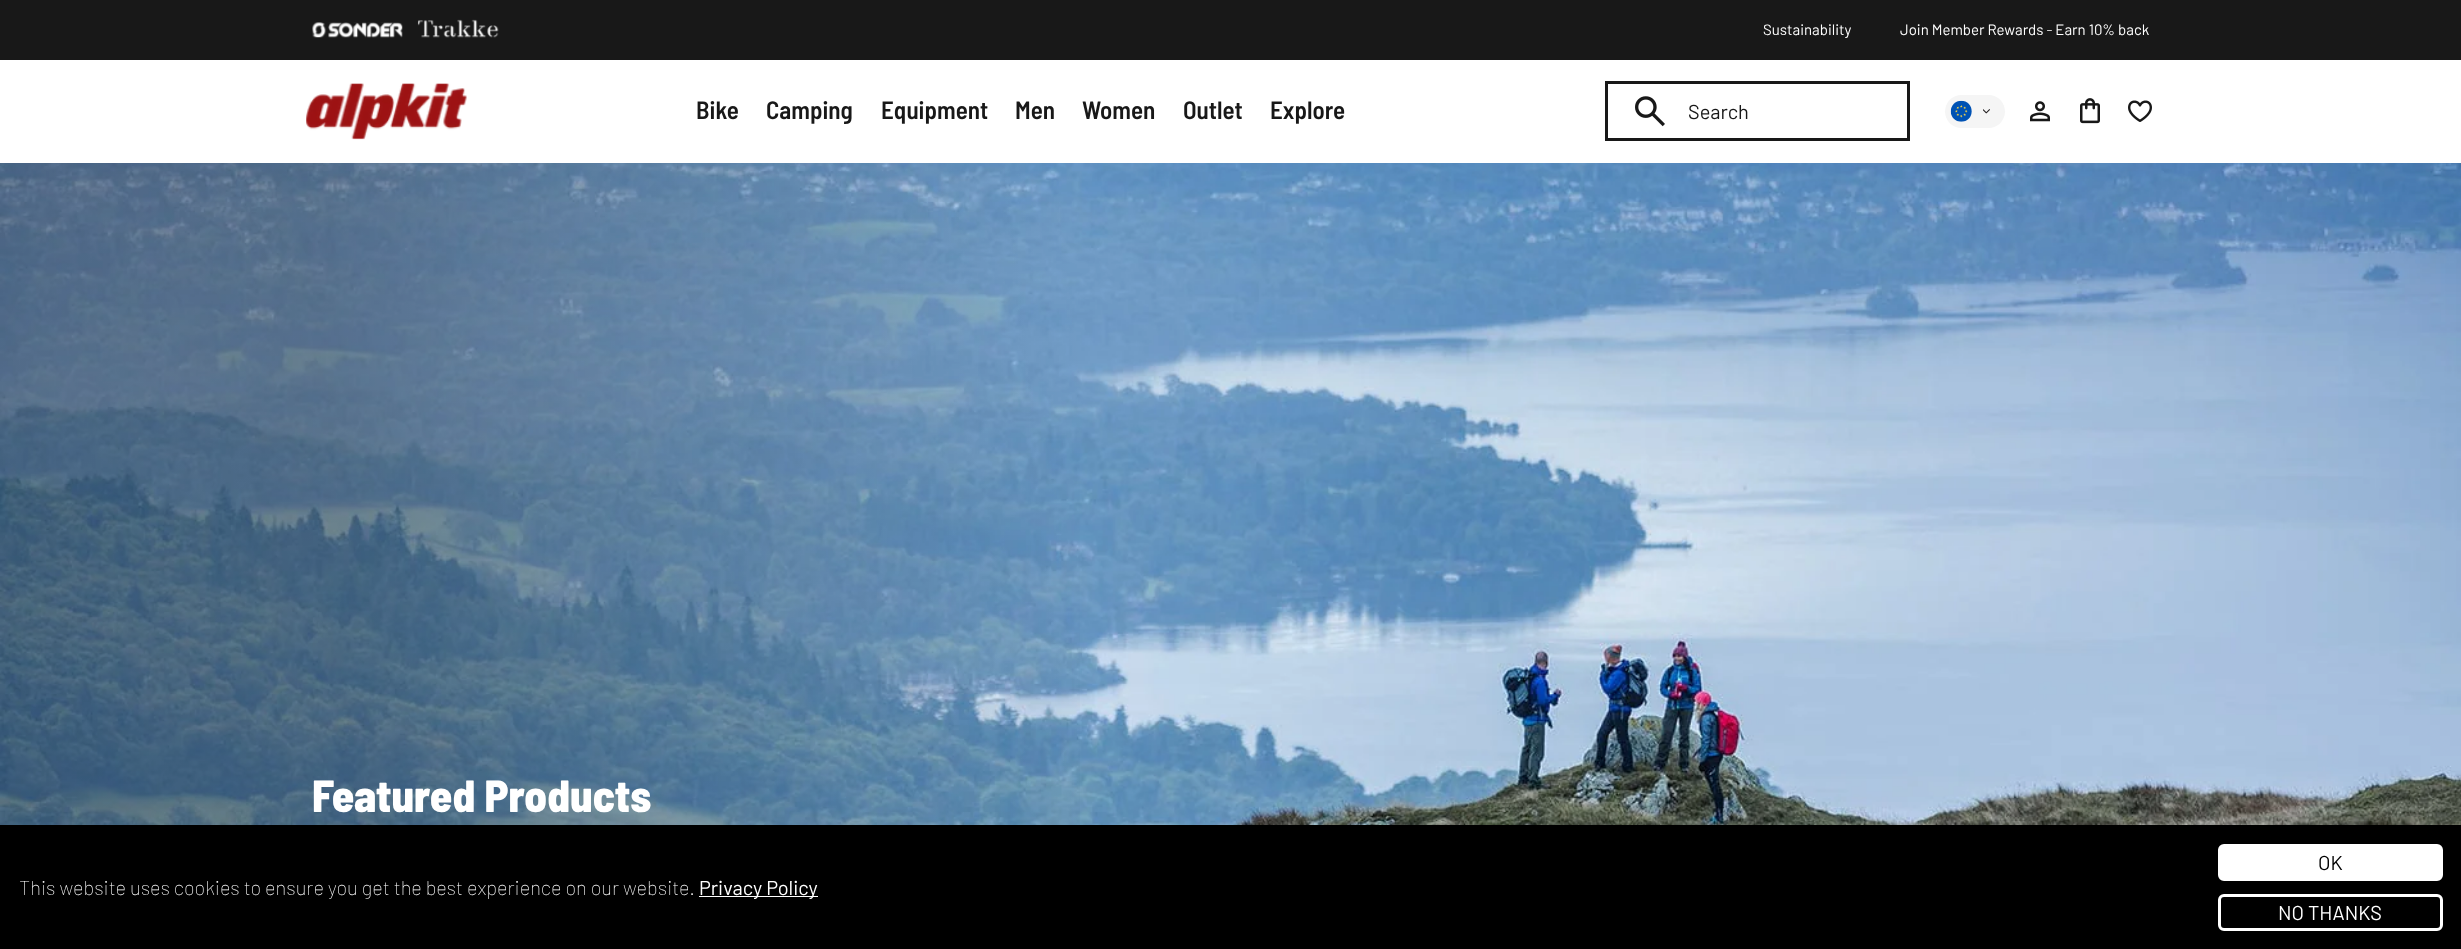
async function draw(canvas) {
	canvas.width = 2461;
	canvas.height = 949;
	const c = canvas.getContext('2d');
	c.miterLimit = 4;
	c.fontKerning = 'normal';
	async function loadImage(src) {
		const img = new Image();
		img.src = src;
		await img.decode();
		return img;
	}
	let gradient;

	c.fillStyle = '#fff';
	c.fillRect(0, 0, 2461, 949);
	c.fillStyle = '#181818';
	c.fillRect(0, 0, 2461, 60);
	c.drawImage(await loadImage('img1.png'), 312, 22, 91, 16);
	c.drawImage(await loadImage('img2.png'), 417, 19, 82, 19);
	c.font = '15px Barlow';
	c.fillStyle = '#fff';
	c.fillText('Sustainability', 1763, 35);
	c.fillText('Join Member Rewards - Earn 10% back', 1900, 35);
	c.drawImage(await loadImage('img3.png'), 306, 83, 161, 57);
	c.font = '600 25px Barlow Semi Condensed';
	c.fillStyle = '#181818';
	for (const [text, x, y] of [
		['Bike', 696, 119],
		['Camping', 766, 119],
		['Equipment', 881, 119],
		['Men', 1015, 119],
		['Women', 1082, 119],
		['Outlet', 1183, 119],
		['Explore', 1270, 119],
	]) {
		c.fillText(text, x, y);
	}
	c.strokeStyle = '#181818';
	c.lineWidth = 3;
	c.strokeRect(1606.5, 82.5, 302, 57);
	c.drawImage(await loadImage('img4.png'), 1635, 96, 30, 31);
	c.font = '20px Barlow';
	c.fillText('Search', 1688, 119);
	c.fillStyle = '#f5f5f5';
	c.beginPath();
	c.roundRect(1945, 95, 60, 33, 16.5);
	c.fill();
	c.drawImage(await loadImage('img5.png'), 1950, 100, 22, 22);
	c.drawImage(await loadImage('img6.png'), 1983, 109, 7, 5);
	c.drawImage(await loadImage('img7.png'), 2030, 101, 20, 21);
	c.drawImage(await loadImage('img8.png'), 2080, 98, 20, 26);
	c.drawImage(await loadImage('img9.png'), 2128, 100, 24, 22);
	c.drawImage(await loadImage('img10.png'), 0, 163, 2461, 662);
	gradient = c.createLinearGradient(-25, 663, 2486, 397);
	gradient.addColorStop(0.15, '#0000004d');
	gradient.addColorStop(0.45, '#00000000');
	c.fillStyle = gradient;
	c.fillRect(0, 163, 1080, 662);
	c.font = '800 45px Barlow Semi Condensed';
	c.fillStyle = '#fff';
	c.fillText('Featured Products', 312, 812);
	c.fillStyle = '#000';
	c.fillRect(0, 825, 2461, 124);
	c.font = '100 20px Barlow';
	c.fillStyle = '#fff';
	c.fillText('This website uses cookies to ensure you get the best experience on our website.', 19, 895);
	c.fillRect(699, 896, 119, 1);
	c.font = '20px Barlow';
	c.fillText('Privacy Policy', 699, 895);
	c.beginPath();
	c.roundRect(2219.5, 845.5, 222, 34, 4.5);
	c.fill();
	c.strokeStyle = '#fff';
	c.stroke();
	c.fillStyle = '#000';
	c.fillText('OK', 2318, 870);
	c.beginPath();
	c.roundRect(2219.5, 895.5, 222, 34, 4.5);
	c.stroke();
	c.fillStyle = '#fff';
	c.fillText('NO THANKS', 2278, 920);
}

draw(document.querySelector('canvas'));
